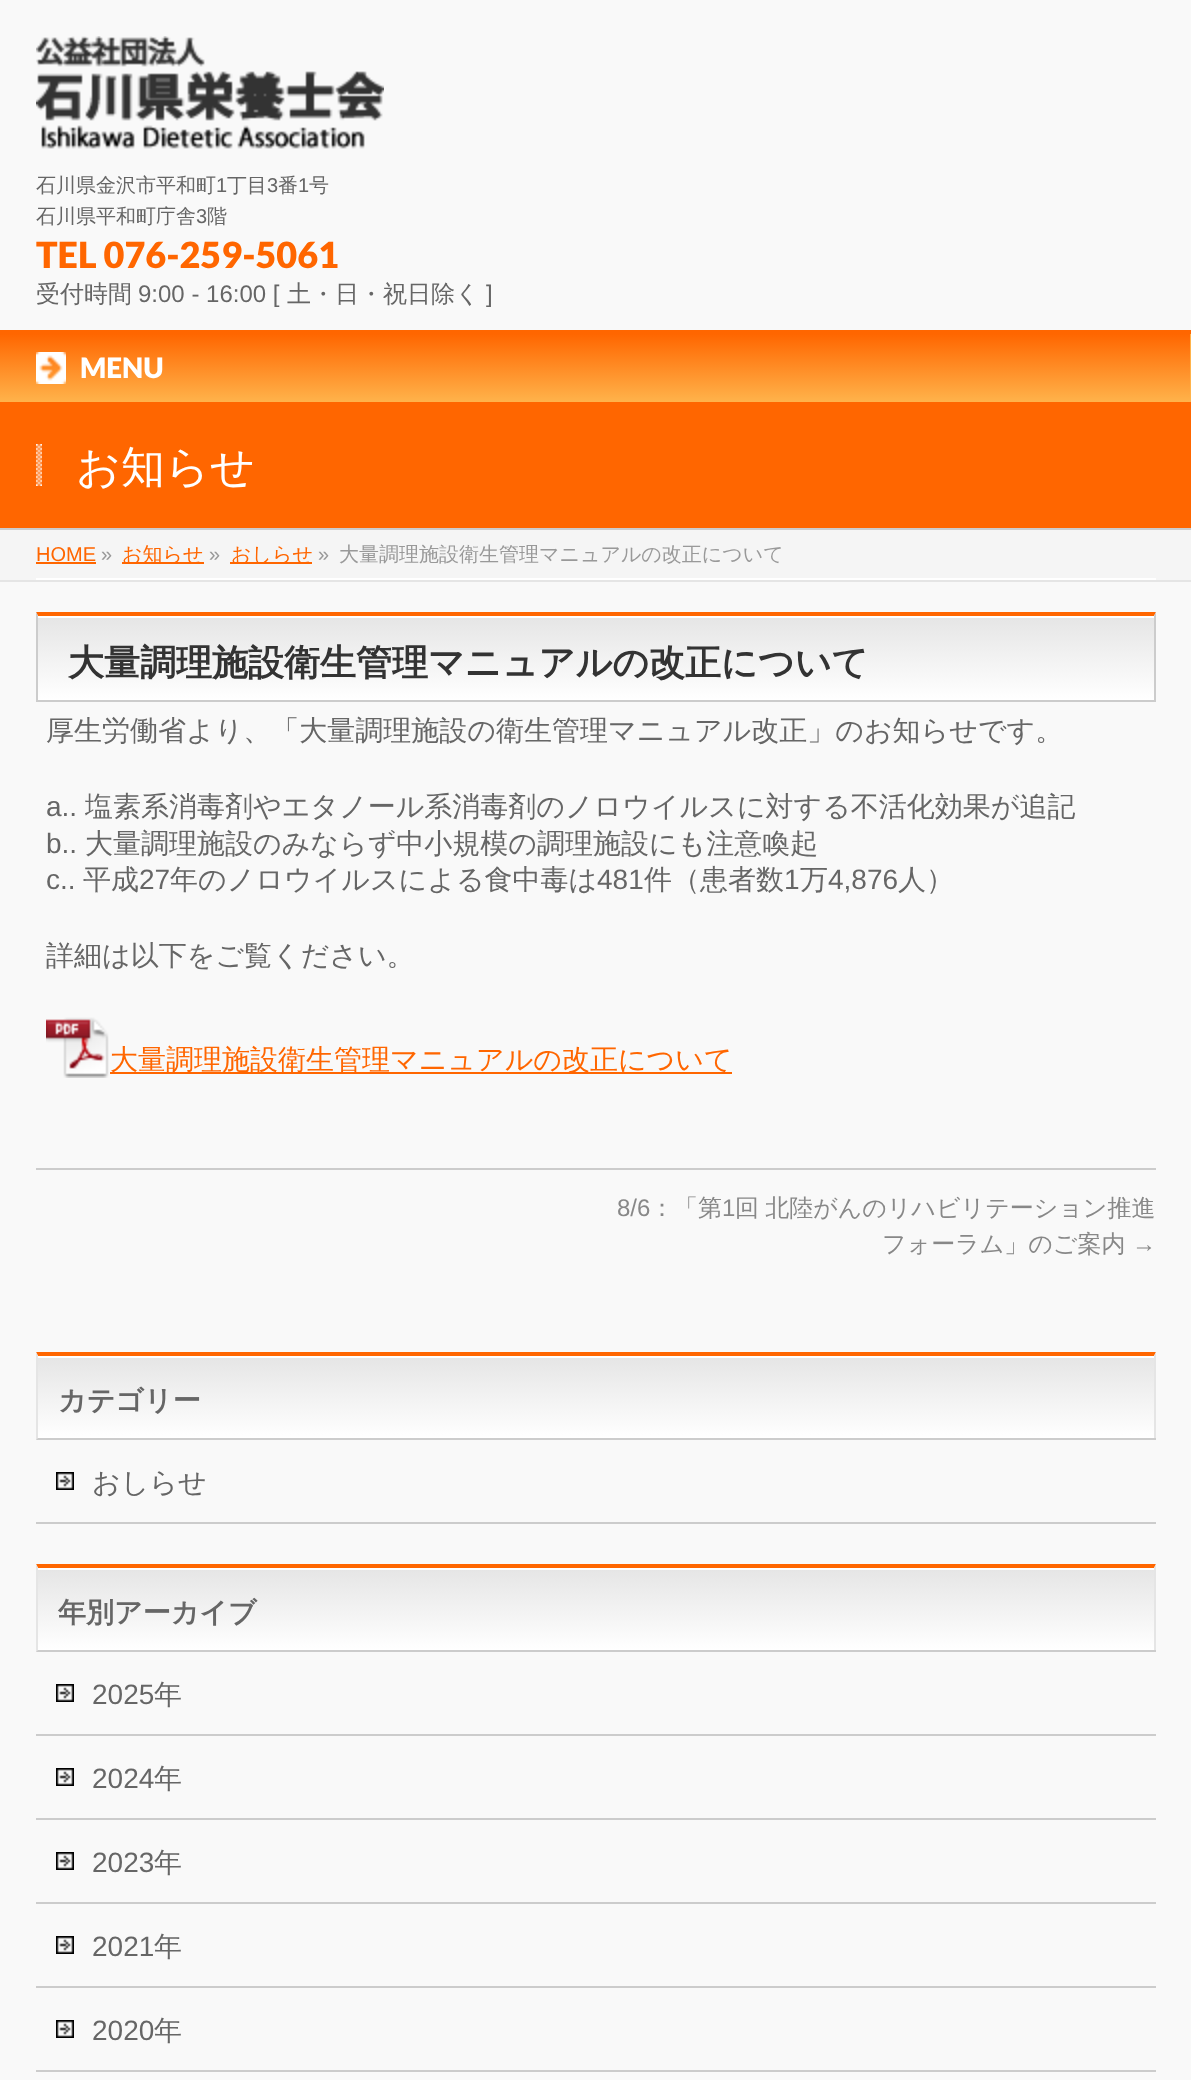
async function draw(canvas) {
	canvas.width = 1191;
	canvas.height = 2080;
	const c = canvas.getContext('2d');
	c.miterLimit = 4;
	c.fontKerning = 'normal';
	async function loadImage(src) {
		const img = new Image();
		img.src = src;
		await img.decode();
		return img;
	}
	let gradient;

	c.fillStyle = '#f9f9f9';
	c.fillRect(0, 0, 1191, 2080);
	c.drawImage(await loadImage('img1.png'), 36, 36, 348, 113);
	c.font = '500 20px WenQuanYi Zen Hei';
	c.fillStyle = '#666';
	c.fillText('石川県金沢市平和町', 36, 192);
	c.font = '20px Liberation Sans';
	c.fillText('1', 216, 192);
	c.font = '500 20px WenQuanYi Zen Hei';
	c.fillText('丁目', 227, 192);
	c.font = '20px Liberation Sans';
	c.fillText('3', 267, 192);
	c.font = '500 20px WenQuanYi Zen Hei';
	c.fillText('番', 278, 192);
	c.font = '20px Liberation Sans';
	c.fillText('1', 298, 192);
	c.font = '500 20px WenQuanYi Zen Hei';
	c.fillText('号', 309, 192);
	c.fillText('石川県平和町庁舎', 36, 223);
	c.font = '20px Liberation Sans';
	c.fillText('3', 196, 223);
	c.font = '500 20px WenQuanYi Zen Hei';
	c.fillText('階', 207, 223);
	c.font = '900 36px Lato';
	c.fillStyle = '#f60';
	c.fillText('TEL 076-259-5061', 36, 268);
	c.font = '500 24px WenQuanYi Zen Hei';
	c.fillStyle = '#666';
	c.fillText('受付時間', 36, 302);
	c.font = '24px Liberation Sans';
	c.fillText('9:00 - 16:00 [', 138, 302);
	c.font = '500 24px WenQuanYi Zen Hei';
	c.fillText('土・日・祝日除く', 287, 302);
	c.font = '24px Liberation Sans';
	c.fillText(']', 486, 302);
	c.fillStyle = '#f60';
	c.fillRect(0, 330, 1191, 4);
	gradient = c.createLinearGradient(595, 334, 595, 402);
	gradient.addColorStop(0, '#f60');
	gradient.addColorStop(1, '#ffb34b');
	c.fillStyle = gradient;
	c.fillRect(0, 334, 1190, 68);
	c.fillStyle = '#ffb34b';
	c.fillRect(1190, 334, 1, 68);
	c.drawImage(await loadImage('img2.png'), 36, 352, 30, 32);
	c.font = '900 28px Lato';
	c.fillStyle = '#fff';
	c.fillText('MENU', 80, 378);
	c.fillStyle = '#f60';
	c.fillRect(0, 402, 1191, 126);
	c.fillStyle = '#ccc';
	c.fillRect(0, 528, 1191, 2);
	c.drawImage(await loadImage('img3.png'), 36, 444, 6, 42);
	c.font = '500 44px WenQuanYi Zen Hei';
	c.fillStyle = '#fff';
	c.fillText('お知らせ', 76, 482);
	for (const [x, y, w, h, color] of [
		[0, 530, 1191, 50, '#f5f5f5'],
		[0, 580, 1191, 2, '#e5e5e5'],
		[36, 578, 1120, 2, '#fff'],
	]) {
		c.fillStyle = color;
		c.fillRect(x, y, w, h);
	}
	c.font = '20px Liberation Sans';
	c.fillStyle = '#f60';
	c.fillText('HOME', 36, 561);
	c.fillRect(36, 562, 60, 2);
	c.fillStyle = '#999';
	c.fillText('»', 101, 561);
	c.fillStyle = '#f60';
	c.fillRect(122, 562, 82, 2);
	c.font = '500 20px WenQuanYi Zen Hei';
	c.fillText('お知らせ', 122, 561);
	c.font = '20px Liberation Sans';
	c.fillStyle = '#999';
	c.fillText('»', 209, 561);
	c.fillStyle = '#f60';
	c.fillRect(230, 562, 82, 2);
	c.font = '500 20px WenQuanYi Zen Hei';
	c.fillText('おしらせ', 231, 561);
	c.font = '20px Liberation Sans';
	c.fillStyle = '#999';
	c.fillText('»', 318, 561);
	c.font = '500 20px WenQuanYi Zen Hei';
	c.fillText('大量調理施設衛生管理マニュアルの改正について', 339, 561);
	gradient = c.createLinearGradient(38, 616, 38, 700);
	gradient.addColorStop(0, '#e5e5e5');
	gradient.addColorStop(1, '#fff');
	c.fillStyle = gradient;
	c.fillRect(38, 618, 1116, 82);
	c.fillStyle = '#fff';
	c.fillRect(38, 616, 1116, 2);
	c.fillStyle = '#f60';
	c.beginPath();
	c.moveTo(36, 612);
	c.lineTo(1156, 612);
	c.lineTo(1154, 616);
	c.lineTo(38, 616);
	c.closePath();
	c.fill();
	c.fillStyle = '#ccc';
	c.beginPath();
	c.moveTo(1156, 612);
	c.lineTo(1156, 702);
	c.lineTo(1154, 700);
	c.lineTo(1154, 616);
	c.closePath();
	c.fill();
	c.fillRect(36, 700, 1120, 2);
	c.beginPath();
	c.moveTo(36, 702);
	c.lineTo(36, 612);
	c.lineTo(38, 616);
	c.lineTo(38, 700);
	c.closePath();
	c.fill();
	c.font = 'bold 36px WenQuanYi Zen Hei';
	c.fillStyle = '#333';
	c.fillText('大量調理施設衛生管理マニュアルの改正について', 68, 675);
	c.font = '500 28px WenQuanYi Zen Hei';
	c.fillStyle = '#666';
	c.fillText('厚生労働省より、「大量調理施設の衛生管理マニュアル改正」のお知らせです。', 46, 740);
	c.font = '28px Liberation Sans';
	c.fillText('a..', 46, 816);
	c.font = '500 28px WenQuanYi Zen Hei';
	c.fillText('塩素系消毒剤やエタノール系消毒剤のノロウイルスに対する不活化効果が追記', 85, 816);
	c.font = '28px Liberation Sans';
	c.fillText('b..', 46, 853);
	c.font = '500 28px WenQuanYi Zen Hei';
	c.fillText('大量調理施設のみならず中小規模の調理施設にも注意喚起', 85, 853);
	c.font = '28px Liberation Sans';
	c.fillText('c..', 46, 889);
	c.font = '500 28px WenQuanYi Zen Hei';
	c.fillText('平成', 83, 889);
	c.font = '28px Liberation Sans';
	c.fillText('27', 139, 889);
	c.font = '500 28px WenQuanYi Zen Hei';
	c.fillText('年のノロウイルスによる食中毒は', 170, 889);
	c.font = '28px Liberation Sans';
	c.fillText('481', 597, 889);
	c.font = '500 28px WenQuanYi Zen Hei';
	c.fillText('件（患者数', 644, 889);
	c.font = '28px Liberation Sans';
	c.fillText('1', 784, 889);
	c.font = '500 28px WenQuanYi Zen Hei';
	c.fillText('万', 800, 889);
	c.font = '28px Liberation Sans';
	c.fillText('4,876', 828, 889);
	c.font = '500 28px WenQuanYi Zen Hei';
	c.fillText('人）', 898, 889);
	c.fillText('詳細は以下をご覧ください。', 46, 965);
	c.drawImage(await loadImage('img4.png'), 46, 1017, 63, 61);
	c.fillStyle = '#f60';
	c.fillRect(110, 1072, 622, 2);
	c.fillText('大量調理施設衛生管理マニュアルの改正について', 110, 1069);
	c.fillStyle = '#ccc';
	c.fillRect(36, 1168, 1120, 2);
	c.font = '24px Liberation Sans';
	c.fillStyle = '#888';
	c.fillText('8/6', 617, 1216);
	c.font = '500 24px WenQuanYi Zen Hei';
	c.fillText('：「第', 650, 1216);
	c.font = '24px Liberation Sans';
	c.fillText('1', 722, 1216);
	c.wordSpacing = '-1px';
	c.font = '500 24px WenQuanYi Zen Hei';
	c.fillText('回 北陸がんのリハビリテーション推進', 735, 1216);
	c.wordSpacing = '0px';
	c.fillText('フォーラム」のご案内', 882, 1252);
	c.font = '24px Liberation Sans';
	c.fillText('→', 1132, 1252);
	gradient = c.createLinearGradient(38, 1356, 38, 1438);
	gradient.addColorStop(0, '#e5e5e5');
	gradient.addColorStop(1, '#fff');
	c.fillStyle = gradient;
	c.fillRect(38, 1358, 1116, 80);
	c.fillStyle = '#fff';
	c.fillRect(38, 1356, 1116, 2);
	c.fillStyle = '#f60';
	c.beginPath();
	c.moveTo(36, 1352);
	c.lineTo(1156, 1352);
	c.lineTo(1154, 1356);
	c.lineTo(38, 1356);
	c.closePath();
	c.fill();
	c.fillStyle = '#e5e5e5';
	c.beginPath();
	c.moveTo(1156, 1352);
	c.lineTo(1156, 1440);
	c.lineTo(1154, 1438);
	c.lineTo(1154, 1356);
	c.closePath();
	c.fill();
	c.fillStyle = '#ccc';
	c.fillRect(36, 1438, 1120, 2);
	c.fillStyle = '#e5e5e5';
	c.beginPath();
	c.moveTo(36, 1440);
	c.lineTo(36, 1352);
	c.lineTo(38, 1356);
	c.lineTo(38, 1438);
	c.closePath();
	c.fill();
	c.font = 'bold 28px WenQuanYi Zen Hei';
	c.fillStyle = '#666';
	c.fillText('カテゴリー', 58, 1410);
	c.fillStyle = '#ccc';
	c.fillRect(36, 1522, 1120, 2);
	c.drawImage(await loadImage('img5.png'), 56, 1472, 18, 18);
	c.font = '500 28px WenQuanYi Zen Hei';
	c.fillStyle = '#666';
	c.fillText('おしらせ', 92, 1492);
	gradient = c.createLinearGradient(38, 1568, 38, 1650);
	gradient.addColorStop(0, '#e5e5e5');
	gradient.addColorStop(1, '#fff');
	c.fillStyle = gradient;
	c.fillRect(38, 1570, 1116, 80);
	c.fillStyle = '#fff';
	c.fillRect(38, 1568, 1116, 2);
	c.fillStyle = '#f60';
	c.beginPath();
	c.moveTo(36, 1564);
	c.lineTo(1156, 1564);
	c.lineTo(1154, 1568);
	c.lineTo(38, 1568);
	c.closePath();
	c.fill();
	c.fillStyle = '#e5e5e5';
	c.beginPath();
	c.moveTo(1156, 1564);
	c.lineTo(1156, 1652);
	c.lineTo(1154, 1650);
	c.lineTo(1154, 1568);
	c.closePath();
	c.fill();
	c.fillStyle = '#ccc';
	c.fillRect(36, 1650, 1120, 2);
	c.fillStyle = '#e5e5e5';
	c.beginPath();
	c.moveTo(36, 1652);
	c.lineTo(36, 1564);
	c.lineTo(38, 1568);
	c.lineTo(38, 1650);
	c.closePath();
	c.fill();
	c.font = 'bold 28px WenQuanYi Zen Hei';
	c.fillStyle = '#666';
	c.fillText('年別アーカイブ', 58, 1622);
	c.fillStyle = '#ccc';
	c.fillRect(36, 1734, 1120, 2);
	c.drawImage(await loadImage('img5.png'), 56, 1684, 18, 18);
	c.font = '28px Liberation Sans';
	c.fillStyle = '#666';
	c.fillText('2025', 92, 1704);
	c.font = '500 28px WenQuanYi Zen Hei';
	c.fillText('年', 154, 1704);
	c.fillStyle = '#ccc';
	c.fillRect(36, 1818, 1120, 2);
	c.drawImage(await loadImage('img5.png'), 56, 1768, 18, 18);
	c.font = '28px Liberation Sans';
	c.fillStyle = '#666';
	c.fillText('2024', 92, 1788);
	c.font = '500 28px WenQuanYi Zen Hei';
	c.fillText('年', 154, 1788);
	c.fillStyle = '#ccc';
	c.fillRect(36, 1902, 1120, 2);
	c.drawImage(await loadImage('img5.png'), 56, 1852, 18, 18);
	c.font = '28px Liberation Sans';
	c.fillStyle = '#666';
	c.fillText('2023', 92, 1872);
	c.font = '500 28px WenQuanYi Zen Hei';
	c.fillText('年', 154, 1872);
	c.fillStyle = '#ccc';
	c.fillRect(36, 1986, 1120, 2);
	c.drawImage(await loadImage('img5.png'), 56, 1936, 18, 18);
	c.font = '28px Liberation Sans';
	c.fillStyle = '#666';
	c.fillText('2021', 92, 1956);
	c.font = '500 28px WenQuanYi Zen Hei';
	c.fillText('年', 154, 1956);
	c.fillStyle = '#ccc';
	c.fillRect(36, 2070, 1120, 2);
	c.drawImage(await loadImage('img5.png'), 56, 2020, 18, 18);
	c.font = '28px Liberation Sans';
	c.fillStyle = '#666';
	c.fillText('2020', 92, 2040);
	c.font = '500 28px WenQuanYi Zen Hei';
	c.fillText('年', 154, 2040);
}

draw(document.querySelector('canvas'));
